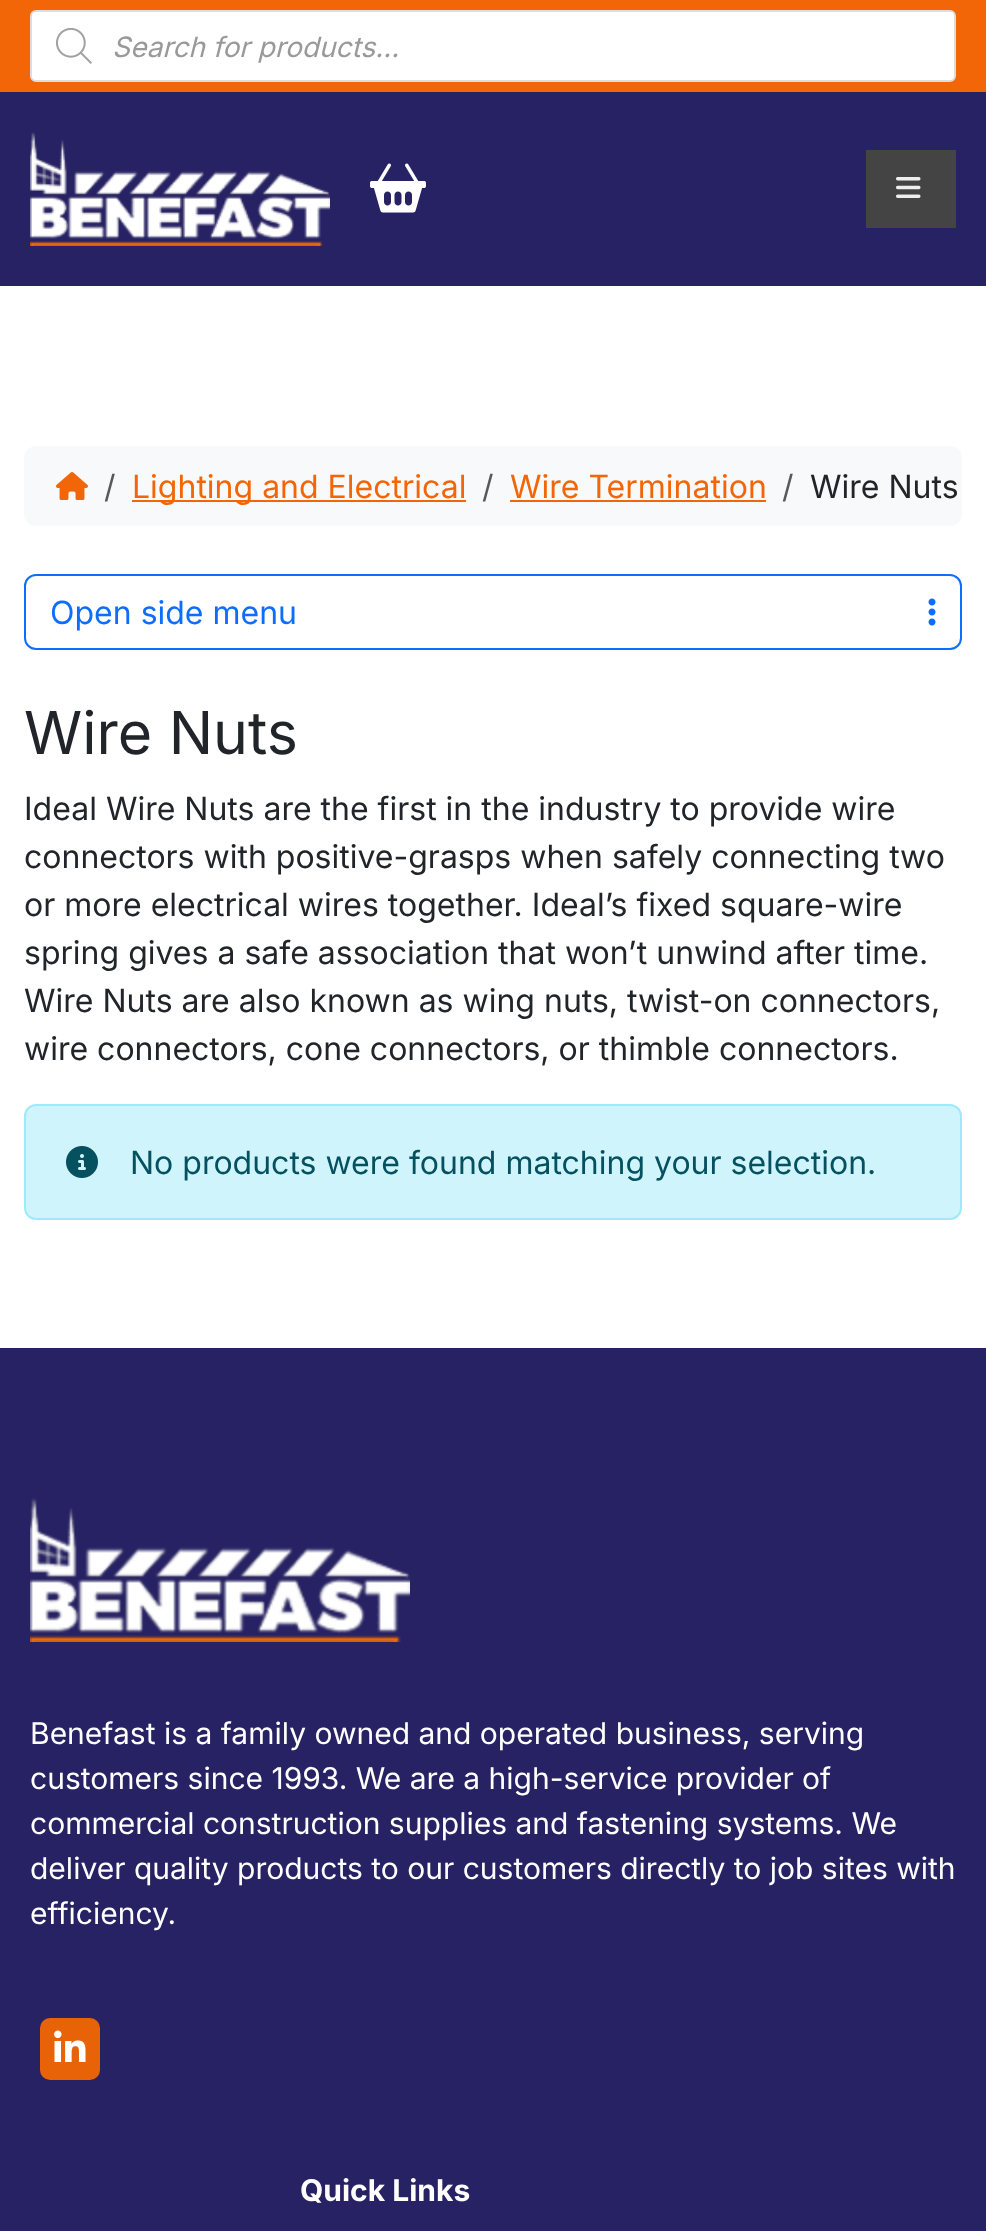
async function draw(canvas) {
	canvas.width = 986;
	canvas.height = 2231;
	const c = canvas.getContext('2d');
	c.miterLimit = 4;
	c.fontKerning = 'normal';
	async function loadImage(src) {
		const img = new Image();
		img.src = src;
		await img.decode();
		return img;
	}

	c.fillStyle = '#fff';
	c.fillRect(0, 0, 986, 2231);
	c.fillStyle = '#f26607';
	c.fillRect(0, 0, 986, 92);
	c.fillStyle = '#fff';
	c.beginPath();
	c.roundRect(31, 11, 924, 70, 5);
	c.fill();
	c.strokeStyle = '#ddd';
	c.lineWidth = 2;
	c.stroke();
	c.drawImage(await loadImage('img1.png'), 55, 28, 37, 36);
	c.font = 'italic 28px Inter';
	c.fillStyle = '#999';
	c.fillText('Search for products...', 112, 57);
	c.fillStyle = '#272264';
	c.fillRect(0, 92, 986, 194);
	c.drawImage(await loadImage('img2.png'), 30, 132, 300, 114);
	c.drawImage(await loadImage('img3.png'), 370, 163, 56, 50);
	c.fillStyle = '#444';
	c.fillRect(866, 150, 90, 78);
	c.drawImage(await loadImage('img4.png'), 896, 177, 25, 21);
	c.fillStyle = '#f8f9fa';
	c.beginPath();
	c.roundRect(24, 446, 938, 80, 12);
	c.fill();
	c.drawImage(await loadImage('img5.png'), 56, 472, 32, 28);
	c.font = '32px Inter';
	c.fillStyle = '#575a5d';
	c.fillText('/', 104, 498);
	c.fillStyle = '#f26607';
	c.fillRect(132, 500, 334, 2);
	c.fillText('Lighting and Electrical', 132, 498);
	c.fillStyle = '#575a5d';
	c.fillText('/', 482, 498);
	c.fillStyle = '#f26607';
	c.fillText('Wire Termination', 510, 498);
	c.fillRect(510, 500, 256, 2);
	c.fillStyle = '#575a5d';
	c.fillText('/', 782, 498);
	c.fillStyle = '#212529';
	c.fillText('Wire Nuts', 810, 498);
	c.beginPath();
	c.roundRect(25, 575, 936, 74, 11);
	c.strokeStyle = '#0d6efd';
	c.stroke();
	c.fillStyle = '#0d6efd';
	c.fillText('Open side menu', 50, 624);
	c.drawImage(await loadImage('img6.png'), 928, 598, 8, 28);
	c.font = '59px Inter';
	c.fillStyle = '#212529';
	c.fillText('Wire Nuts', 24, 754);
	c.font = '32px Inter';
	for (const [text, x, y] of [
		['Ideal Wire Nuts are the first in the industry to provide wire', 24, 820],
		['connectors with positive-grasps when safely connecting two', 24, 868],
		['or more electrical wires together. Ideal’s fixed square-wire', 24, 916],
		['spring gives a safe association that won’t unwind after time.', 24, 964],
		['Wire Nuts are also known as wing nuts, twist-on connectors,', 24, 1012],
		['wire connectors, cone connectors, or thimble connectors.', 24, 1060],
	]) {
		c.fillText(text, x, y);
	}
	c.fillStyle = '#cff4fc';
	c.beginPath();
	c.roundRect(25, 1105, 936, 114, 11);
	c.fill();
	c.strokeStyle = '#9eeaf9';
	c.stroke();
	c.drawImage(await loadImage('img7.png'), 66, 1146, 32, 32);
	c.fillStyle = '#055160';
	c.fillText('No products were found matching your selection.', 130, 1174);
	c.fillStyle = '#272264';
	c.fillRect(0, 1348, 986, 883);
	c.drawImage(await loadImage('img8.png'), 30, 1498, 380, 144);
	c.font = '30px Inter';
	c.fillStyle = '#fff';
	for (const [text, x, y] of [
		['Benefast is a family owned and operated business, serving', 30, 1744],
		['customers since 1993. We are a high-service provider of', 30, 1789],
		['commercial construction supplies and fastening systems. We', 30, 1834],
		['deliver quality products to our customers directly to job sites with', 30, 1879],
		['efficiency.', 30, 1924],
	]) {
		c.fillText(text, x, y);
	}
	c.fillStyle = '#e86207';
	c.beginPath();
	c.roundRect(40, 2018, 60, 62, 10);
	c.fill();
	c.drawImage(await loadImage('img9.png'), 54, 2030, 32, 32);
	c.font = 'bold 30px Inter';
	c.fillStyle = '#fff';
	c.fillText('Quick Links', 300, 2201);
}

draw(document.querySelector('canvas'));
